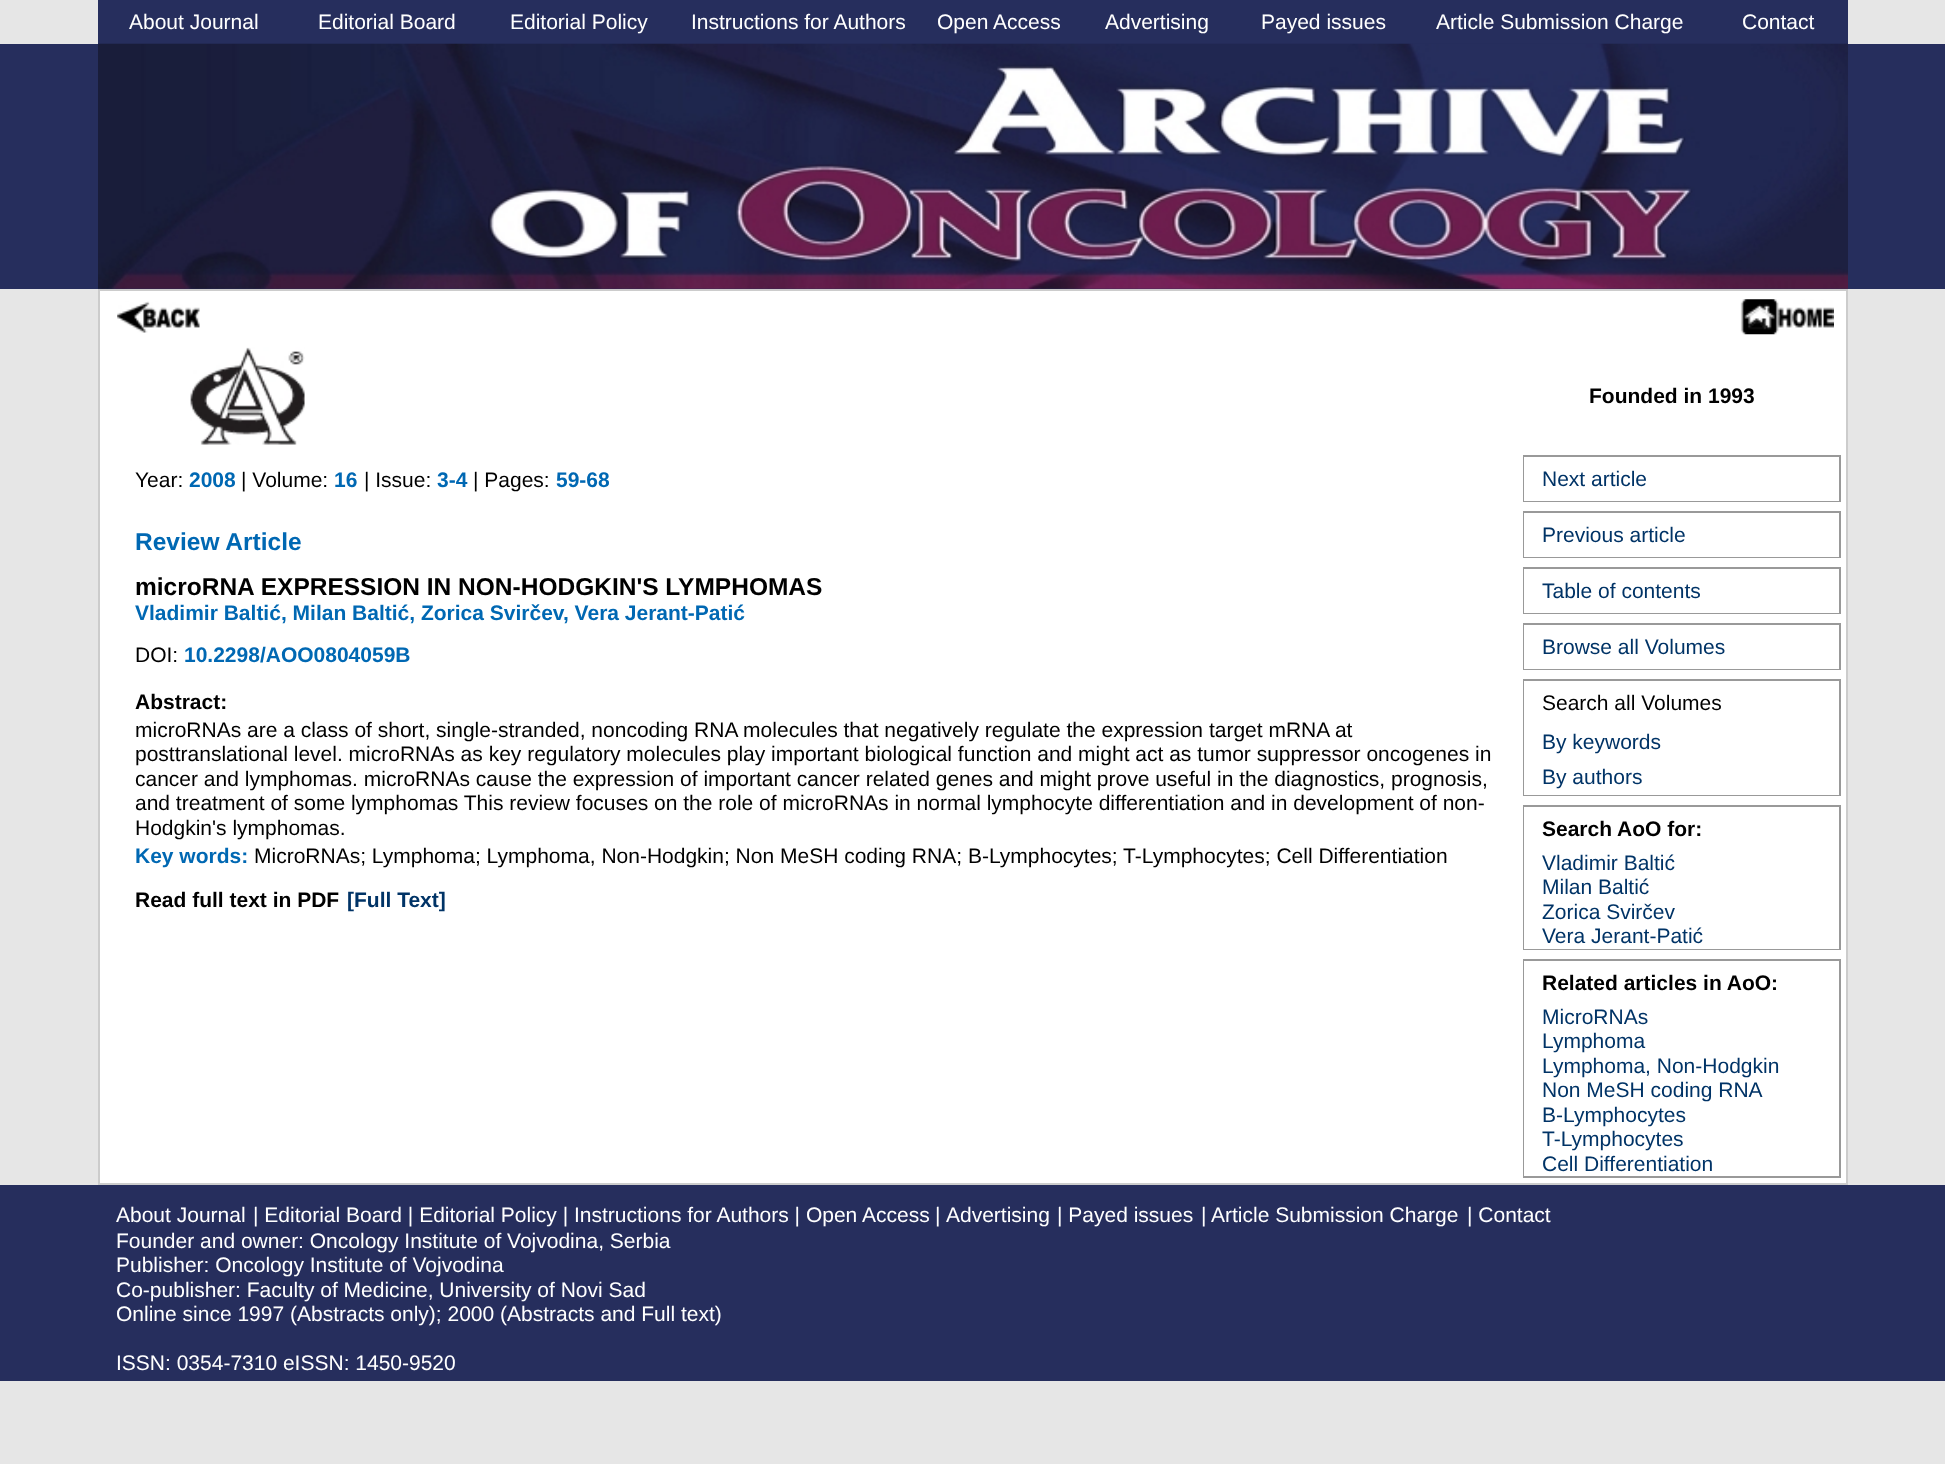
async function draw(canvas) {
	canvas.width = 1945;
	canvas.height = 1464;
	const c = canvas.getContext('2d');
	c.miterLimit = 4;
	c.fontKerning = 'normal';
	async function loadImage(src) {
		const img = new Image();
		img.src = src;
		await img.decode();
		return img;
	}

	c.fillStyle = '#e6e6e6';
	c.fillRect(0, 0, 1945, 1464);
	c.fillStyle = '#262e5d';
	c.fillRect(98, 0, 1750, 44);
	c.font = '21px Liberation Sans';
	c.fillStyle = '#fff';
	for (const [text, x, y] of [
		['About Journal', 129, 29],
		['Editorial Board', 318, 29],
		['Editorial Policy', 510, 29],
		['Instructions for Authors', 691, 29],
		['Open', 937, 29],
		['Access', 993, 29],
		['Advertising', 1105, 29],
		['Payed issues', 1261, 29],
		['Article Submission Charge', 1436, 29],
		['Contact', 1742, 29],
	]) {
		c.fillText(text, x, y);
	}
	c.fillStyle = '#262e5d';
	c.fillRect(0, 44, 1945, 245);
	c.drawImage(await loadImage('img1.png'), 98, 43, 1750, 246);
	c.fillStyle = '#ccc';
	c.fillRect(98, 289, 1750, 896);
	c.fillStyle = '#fff';
	c.fillRect(100, 291, 1746, 892);
	c.drawImage(await loadImage('img2.png'), 117, 301, 83, 32);
	c.drawImage(await loadImage('img3.png'), 1740, 299, 94, 36);
	c.drawImage(await loadImage('img4.png'), 190, 347, 115, 98);
	c.font = 'bold 21px Liberation Sans';
	c.fillStyle = '#000';
	c.fillText('Founded in 1993', 1589, 403);
	c.font = '21px Liberation Sans';
	c.fillText('Year:', 135, 487);
	c.font = 'bold 21px Liberation Sans';
	c.fillStyle = '#0068b3';
	c.fillText('2008', 189, 487);
	c.font = '21px Liberation Sans';
	c.fillStyle = '#000';
	c.fillText('| Volume:', 241, 487);
	c.font = 'bold 21px Liberation Sans';
	c.fillStyle = '#0068b3';
	c.fillText('16', 334, 487);
	c.font = '21px Liberation Sans';
	c.fillStyle = '#000';
	c.fillText('| Issue:', 364, 487);
	c.font = 'bold 21px Liberation Sans';
	c.fillStyle = '#0068b3';
	c.fillText('3-4', 437, 487);
	c.font = '21px Liberation Sans';
	c.fillStyle = '#000';
	c.fillText('| Pages:', 473, 487);
	c.font = 'bold 21px Liberation Sans';
	c.fillStyle = '#0068b3';
	c.fillText('59-68', 556, 487);
	c.font = 'bold 24.5px Liberation Sans';
	c.fillText('Review Article', 135, 550);
	c.fillStyle = '#000';
	c.fillText('microRNA EXPRESSION IN NON-HODGKIN\'S LYMPHOMAS', 135, 595);
	c.font = 'bold 21px Liberation Sans';
	c.fillStyle = '#0068b3';
	c.fillText('Vladimir Baltić, Milan Baltić, Zorica Svirčev, Vera Jerant-Patić', 135, 620);
	c.font = '21px Liberation Sans';
	c.fillStyle = '#000';
	c.fillText('DOI:', 135, 662);
	c.font = 'bold 21px Liberation Sans';
	c.fillStyle = '#0068b3';
	c.fillText('10.2298/AOO0804059B', 184, 662);
	c.fillStyle = '#000';
	c.fillText('Abstract:', 135, 709);
	c.font = '21px Liberation Sans';
	for (const [text, x, y] of [
		['microRNAs are a class of short, single-stranded, noncoding RNA molecules that negatively regulate the expression target mRNA at', 135, 737],
		['posttranslational level. microRNAs as key regulatory molecules play important biological function and might act as tumor suppressor oncogenes in', 135, 761],
		['cancer and lymphomas. microRNAs cause the expression of important cancer related genes and might prove useful in the diagnostics, prognosis,', 135, 786],
		['and treatment of some lymphomas This review focuses on the role of microRNAs in normal lymphocyte differentiation and in development of non-', 135, 810],
		['Hodgkin\'s lymphomas.', 135, 835],
	]) {
		c.fillText(text, x, y);
	}
	c.font = 'bold 21px Liberation Sans';
	c.fillStyle = '#0068b3';
	c.fillText('Key words:', 135, 863);
	c.font = '21px Liberation Sans';
	c.fillStyle = '#000';
	c.fillText('MicroRNAs; Lymphoma; Lymphoma, Non-Hodgkin; Non MeSH coding RNA; B-Lymphocytes; T-Lymphocytes; Cell Differentiation', 254, 863);
	c.font = 'bold 21px Liberation Sans';
	c.fillText('Read full text in PDF', 135, 907);
	c.fillStyle = '#036';
	c.fillText('[Full Text]', 347, 907);
	c.fillStyle = '#999';
	c.fillRect(1523, 455, 318, 47);
	c.fillStyle = '#fff';
	c.fillRect(1524, 457, 315, 44);
	c.font = '21px Liberation Sans';
	c.fillStyle = '#036';
	c.fillText('Next article', 1542, 486);
	c.fillStyle = '#999';
	c.fillRect(1523, 511, 318, 47);
	c.fillStyle = '#fff';
	c.fillRect(1524, 513, 315, 44);
	c.fillStyle = '#036';
	c.fillText('Previous article', 1542, 542);
	c.fillStyle = '#999';
	c.fillRect(1523, 567, 318, 47);
	c.fillStyle = '#fff';
	c.fillRect(1524, 569, 315, 44);
	c.fillStyle = '#036';
	c.fillText('Table of contents', 1542, 598);
	c.fillStyle = '#999';
	c.fillRect(1523, 623, 318, 47);
	c.fillStyle = '#fff';
	c.fillRect(1524, 625, 315, 44);
	c.fillStyle = '#036';
	c.fillText('Browse all Volumes', 1542, 654);
	c.fillStyle = '#999';
	c.fillRect(1523, 679, 318, 117);
	c.fillStyle = '#fff';
	c.fillRect(1524, 681, 315, 114);
	c.fillStyle = '#000';
	c.fillText('Search all Volumes', 1542, 710);
	c.fillStyle = '#036';
	c.fillText('By keywords', 1542, 749);
	c.fillText('By authors', 1542, 784);
	c.fillStyle = '#999';
	c.fillRect(1523, 805, 318, 145);
	c.fillStyle = '#fff';
	c.fillRect(1524, 807, 315, 142);
	c.font = 'bold 21px Liberation Sans';
	c.fillStyle = '#000';
	c.fillText('Search', 1542, 836);
	c.fillText('AoO for:', 1617, 836);
	c.font = '21px Liberation Sans';
	c.fillStyle = '#036';
	for (const [text, x, y] of [
		['Vladimir Baltić', 1542, 870],
		['Milan Baltić', 1542, 894],
		['Zorica Svirčev', 1542, 919],
		['Vera Jerant-Patić', 1542, 943],
	]) {
		c.fillText(text, x, y);
	}
	c.fillStyle = '#999';
	c.fillRect(1523, 959, 318, 219);
	c.fillStyle = '#fff';
	c.fillRect(1524, 961, 315, 215);
	c.font = 'bold 21px Liberation Sans';
	c.fillStyle = '#000';
	c.fillText('Related articles in AoO:', 1542, 990);
	c.font = '21px Liberation Sans';
	c.fillStyle = '#036';
	for (const [text, x, y] of [
		['MicroRNAs', 1542, 1024],
		['Lymphoma', 1542, 1048],
		['Lymphoma, Non-Hodgkin', 1542, 1073],
		['Non MeSH coding RNA', 1542, 1097],
		['B-Lymphocytes', 1542, 1122],
		['T-Lymphocytes', 1542, 1146],
		['Cell Differentiation', 1542, 1171],
	]) {
		c.fillText(text, x, y);
	}
	c.fillStyle = '#262e5d';
	c.fillRect(0, 1185, 1945, 196);
	c.fillStyle = '#fff';
	for (const [text, x, y] of [
		['About Journal', 116, 1222],
		['| Editorial Board | Editorial Policy | Instructions for Authors | Open', 253, 1222],
		['Access', 862, 1222],
		['|', 935, 1222],
		['Advertising', 946, 1222],
		['| Payed issues', 1057, 1222],
		['|', 1201, 1222],
		['Article Submission Charge', 1211, 1222],
		['| Contact', 1467, 1222],
		['Founder and owner: Oncology Institute of Vojvodina, Serbia', 116, 1248],
		['Publisher: Oncology Institute of Vojvodina', 116, 1272],
		['Co-publisher: Faculty of Medicine, University of Novi Sad', 116, 1297],
		['Online since 1997 (Abstracts only); 2000 (Abstracts and Full text)', 116, 1321],
		['ISSN: 0354-7310 eISSN: 1450-9520', 116, 1370],
	]) {
		c.fillText(text, x, y);
	}
}

draw(document.querySelector('canvas'));
